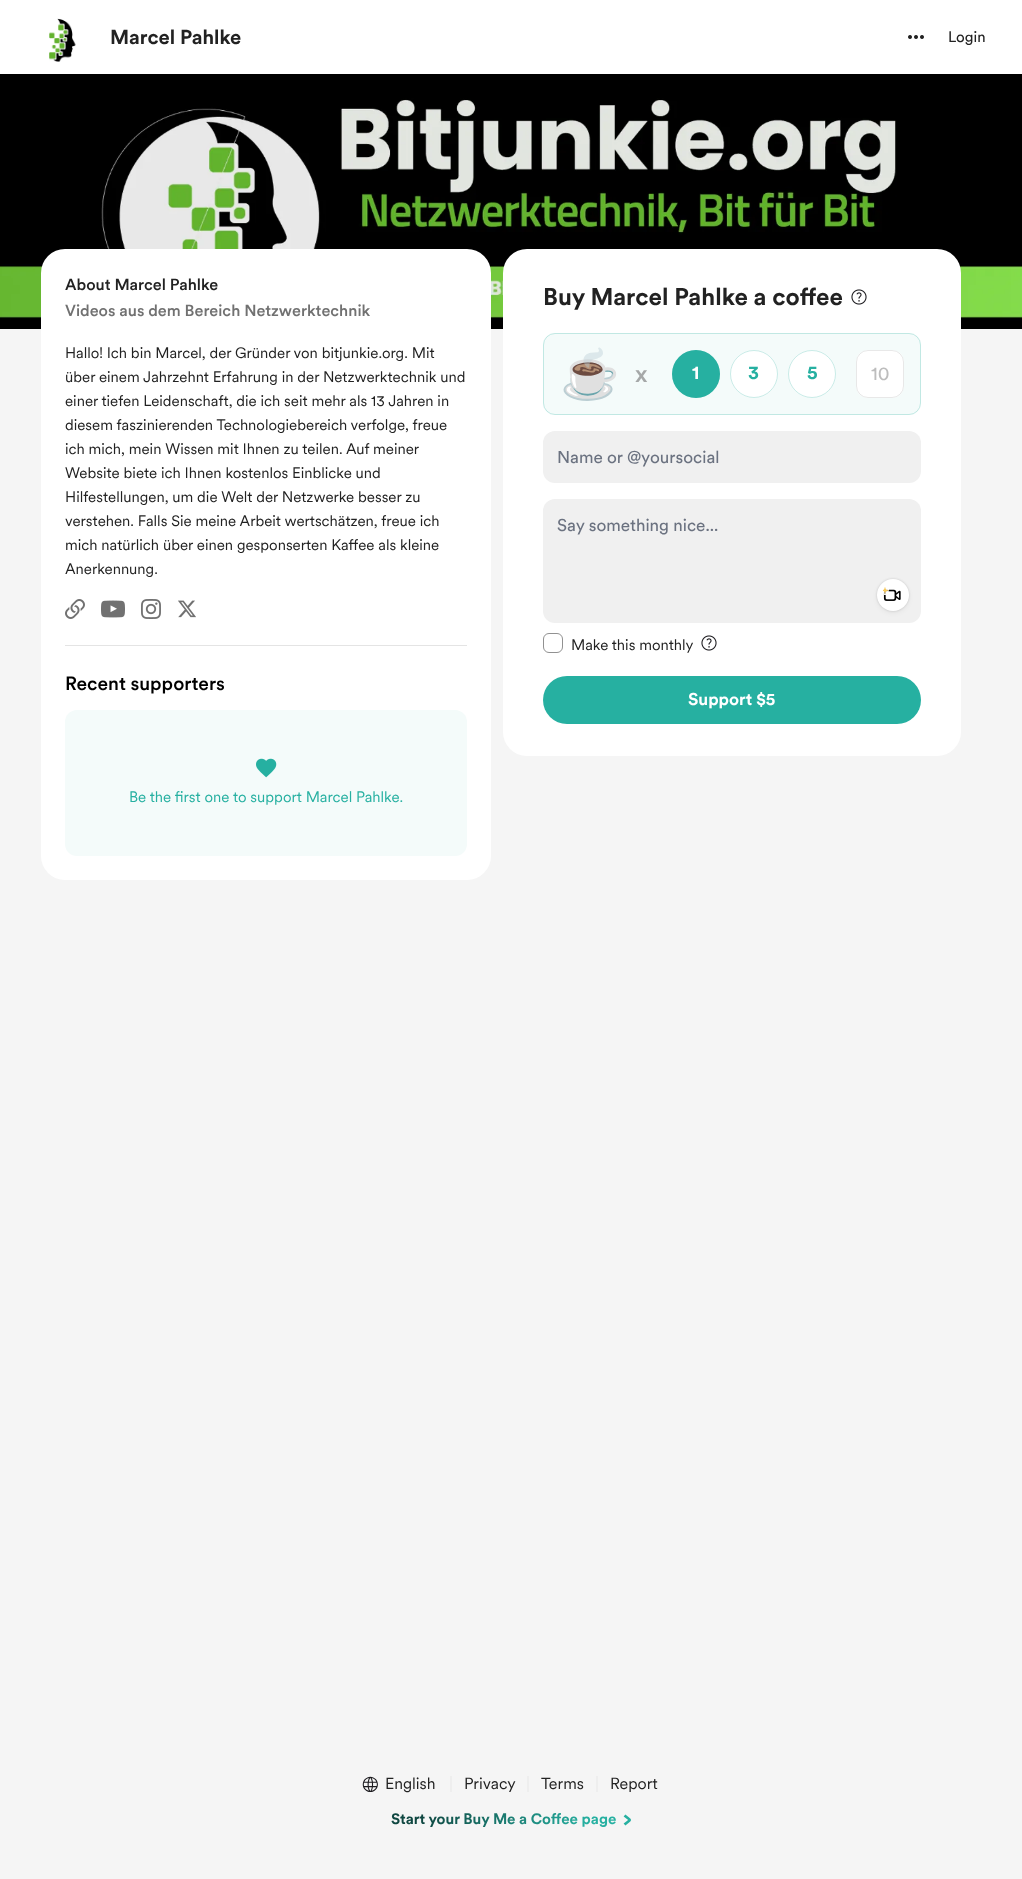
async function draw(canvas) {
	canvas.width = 1022;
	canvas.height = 1879;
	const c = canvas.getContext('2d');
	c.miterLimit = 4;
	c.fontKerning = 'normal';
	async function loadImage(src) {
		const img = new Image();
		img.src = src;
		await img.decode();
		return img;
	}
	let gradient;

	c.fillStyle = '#fff';
	c.fillRect(0, 0, 1022, 1879);
	c.drawImage(await loadImage('img1.png'), 49, 18, 27, 44);
	c.font = 'bold 20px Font';
	c.fillStyle = '#222';
	c.fillText('Marcel Pahlke', 110, 44);
	c.drawImage(await loadImage('img2.png'), 908, 35, 16, 4);
	c.font = '15px Font';
	c.fillText('Login', 948, 42);
	c.fillStyle = '#f5f5f5';
	c.fillRect(0, 329, 1022, 1550);
	c.drawImage(await loadImage('img3.png'), 0, 74, 1022, 255);
	c.fillStyle = '#fff';
	c.beginPath();
	c.roundRect(41, 249, 450, 631, 24);
	c.fill();
	c.fillStyle = '#e4e4e4';
	c.fillRect(65, 645, 402, 1);
	c.font = '500 16px Font';
	c.fillStyle = '#222';
	c.fillText('About Marcel Pahlke', 65, 290);
	c.fillStyle = '#717171';
	c.fillText('Videos aus dem Bereich Netzwerktechnik', 65, 316);
	c.font = '15px "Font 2"';
	c.fillStyle = '#222';
	for (const [text, x, y] of [
		['Hallo! Ich bin Marcel, der Gründer von bitjunkie.org. Mit', 65, 358],
		['über einem Jahrzehnt Erfahrung in der Netzwerktechnik und', 65, 382],
		['einer tiefen Leidenschaft, die ich seit mehr als 13 Jahren in', 65, 406],
		['diesem faszinierenden Technologiebereich verfolge, freue', 65, 430],
		['ich mich, mein Wissen mit Ihnen zu teilen. Auf meiner', 65, 454],
		['Website biete ich Ihnen kostenlos Einblicke und', 65, 478],
		['Hilfestellungen, um die Welt der Netzwerke besser zu', 65, 502],
		['verstehen. Falls Sie meine Arbeit wertschätzen, freue ich', 65, 526],
		['mich natürlich über einen gesponserten Kaffee als kleine', 65, 550],
		['Anerkennung.', 65, 574],
	]) {
		c.fillText(text, x, y);
	}
	c.drawImage(await loadImage('img4.png'), 65, 599, 20, 20);
	c.drawImage(await loadImage('img5.png'), 101, 600, 24, 18);
	c.drawImage(await loadImage('img6.png'), 141, 599, 20, 20);
	c.drawImage(await loadImage('img7.png'), 178, 600, 18, 18);
	c.font = '500 19px Font';
	c.fillStyle = '#000';
	c.fillText('Recent supporters', 65, 690);
	c.fillStyle = '#f4fbfa';
	c.beginPath();
	c.roundRect(65, 710, 402, 146, 12);
	c.fill();
	c.drawImage(await loadImage('img8.png'), 256, 758, 21, 20);
	c.font = '15px "Font 2"';
	c.fillStyle = '#26b0a1';
	c.fillText('Be the first one to support Marcel Pahlke.', 129, 802);
	c.fillStyle = '#fff';
	c.beginPath();
	c.roundRect(503, 249, 458, 507, 24);
	c.fill();
	c.font = 'bold 24px Font';
	c.fillStyle = '#222';
	c.fillText('Buy Marcel Pahlke a coffee', 543, 305);
	c.drawImage(await loadImage('img9.png'), 851, 289, 16, 16);
	c.fillStyle = '#f4fbfa';
	c.beginPath();
	c.roundRect(543, 333, 378, 82, 12);
	c.fill();
	c.beginPath();
	c.roundRect(543.5, 333.5, 377, 81, 11.5);
	c.strokeStyle = '#26b0a140';
	c.stroke();
	c.font = '48px Noto Color Emoji';
	c.fillStyle = '#000';
	c.fillText('☕', 560, 391);
	c.font = '500 24px Font';
	c.fillStyle = '#a5a8a8';
	c.fillText('x', 635, 382);
	c.fillStyle = '#26b0a1';
	c.beginPath();
	c.arc(696, 374, 24, 0, 2 * Math.PI);
	c.fill();
	c.beginPath();
	c.arc(696, 374, 23.5, 0, 2 * Math.PI);
	c.stroke();
	c.font = 'bold 19px Font';
	c.fillStyle = '#fff';
	c.fillText('1', 692, 379);
	c.beginPath();
	c.arc(754, 374, 24, 0, 2 * Math.PI);
	c.fill();
	c.beginPath();
	c.arc(754, 374, 23.5, 0, 2 * Math.PI);
	c.stroke();
	c.fillStyle = '#26b0a1';
	c.fillText('3', 748, 379);
	c.fillStyle = '#fff';
	c.beginPath();
	c.arc(812, 374, 24, 0, 2 * Math.PI);
	c.fill();
	c.beginPath();
	c.arc(812, 374, 23.5, 0, 2 * Math.PI);
	c.stroke();
	c.fillStyle = '#26b0a1';
	c.fillText('5', 807, 379);
	c.fillStyle = '#fff';
	c.beginPath();
	c.roundRect(856, 350, 48, 48, 12);
	c.fill();
	c.beginPath();
	c.roundRect(856.5, 350.5, 47, 47, 11.5);
	c.strokeStyle = '#2222221a';
	c.stroke();
	c.font = '19px Font';
	c.fillStyle = '#bdbdbd';
	c.fillText('10', 871, 380);
	c.fillStyle = '#f0f0f0';
	c.beginPath();
	c.roundRect(543, 431, 378, 52, 12);
	c.fill();
	c.font = '17px Font';
	c.fillStyle = '#6b7280';
	c.fillText('Name or @yoursocial', 557, 463);
	c.fillStyle = '#f0f0f0';
	c.beginPath();
	c.roundRect(543, 499, 378, 124, 12);
	c.fill();
	c.fillStyle = '#6b7280';
	c.fillText('Say something nice...', 557, 531);
	c.fillStyle = '#0000000d';
	c.filter = 'blur(2.5px)';
	c.beginPath();
	c.roundRect(877, 581, 32, 32, 16);
	c.fill();
	c.filter = 'none';
	c.fillStyle = '#00000026';
	c.filter = 'blur(1px)';
	c.beginPath();
	c.roundRect(877, 579, 32, 32, 16);
	c.fill();
	c.filter = 'none';
	c.fillStyle = '#fff';
	c.beginPath();
	c.arc(893, 595, 16, 0, 2 * Math.PI);
	c.fill();
	c.drawImage(await loadImage('img11.png'), 883, 589, 18, 12);
	c.drawImage(await loadImage('img10.png'), 883, 587, 6, 8);
	c.beginPath();
	c.roundRect(543.5, 633.5, 19, 19, 5.5);
	c.strokeStyle = '#919191';
	c.stroke();
	c.font = '15px "Font 2"';
	c.fillStyle = '#222';
	c.fillText('Make this monthly', 571, 650);
	c.drawImage(await loadImage('img9.png'), 701, 635, 16, 16);
	c.fillStyle = '#26b0a1';
	c.beginPath();
	c.roundRect(543, 676, 378, 48, 24);
	c.fill();
	c.font = 'bold 17px Font';
	c.fillStyle = '#fff';
	c.fillText('Support $5', 688, 705);
	c.drawImage(await loadImage('img12.png'), 362, 1776, 16, 16);
	c.font = '16px "Font 2"';
	c.fillStyle = '#222';
	c.fillText('English', 385, 1789);
	c.beginPath();
	c.moveTo(451, 1776);
	c.lineTo(451, 1792);
	c.strokeStyle = '#e7e7e7';
	c.stroke();
	c.fillText('Privacy', 464, 1789);
	c.beginPath();
	c.moveTo(528, 1776);
	c.lineTo(528, 1792);
	c.stroke();
	c.fillText('Terms', 541, 1789);
	c.beginPath();
	c.moveTo(597, 1776);
	c.lineTo(597, 1792);
	c.stroke();
	c.fillText('Report', 610, 1789);
	c.font = 'bold 15px Font';
	gradient = c.createLinearGradient(406, 1774, 616, 1864);
	gradient.addColorStop(0.14, '#0f4741');
	gradient.addColorStop(0.82, '#26b0a1');
	c.fillStyle = gradient;
	c.fillText('Start your Buy Me a Coffee page', 391, 1824);
	c.beginPath();
	c.moveTo(624.5, 1815.5);
	c.bezierCurveTo(631.5, 1821.5, 631.5, 1818.5, 624.5, 1824.5);
	c.strokeStyle = '#26b0a1';
	c.lineWidth = 2.7;
	c.stroke();
}

draw(document.querySelector('canvas'));
